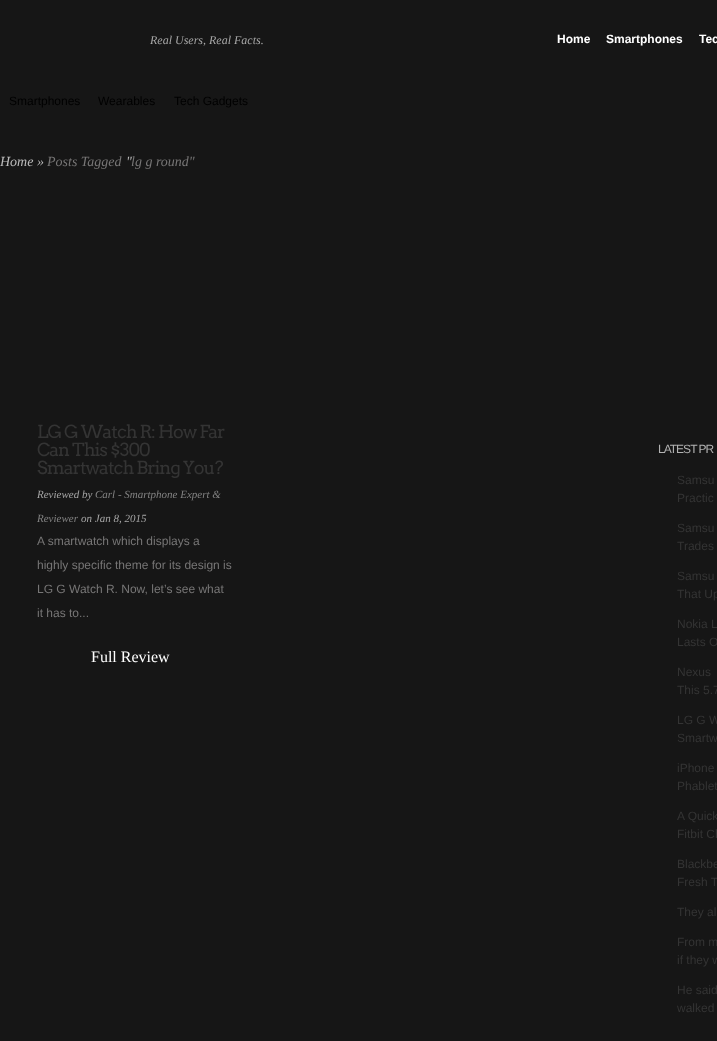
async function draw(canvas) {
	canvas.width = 717;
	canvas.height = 1041;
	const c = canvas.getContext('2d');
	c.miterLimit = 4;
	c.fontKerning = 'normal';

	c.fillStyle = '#161616';
	c.fillRect(0, 0, 717, 1041);
	c.font = 'italic 12px Liberation Serif';
	c.fillStyle = '#a6a6a6';
	c.fillText('Real Users, Real Facts.', 150, 44);
	c.font = 'bold 12px Liberation Sans';
	c.fillStyle = '#fff';
	for (const [text, x, y] of [
		['Home', 557, 43],
		['Smartphones', 606, 43],
		['Tec', 699, 43],
	]) {
		c.fillText(text, x, y);
	}
	c.font = '12px Liberation Sans';
	c.fillStyle = '#000';
	for (const [text, x, y] of [
		['Smartphones', 9, 105],
		['Wearables', 98, 105],
		['Tech Gadgets', 174, 105],
	]) {
		c.fillText(text, x, y);
	}
	c.font = 'italic 14px Liberation Serif';
	c.fillStyle = '#bdbdbd';
	c.fillText('Home »', 0, 166);
	c.fillStyle = '#777676';
	c.fillText('Posts Tagged', 47, 166);
	c.fillStyle = '#bdbdbd';
	c.fillText('"', 126, 166);
	c.fillStyle = '#777676';
	c.fillText('lg g round"', 131, 166);
	c.letterSpacing = '-1px';
	c.font = '18px Arvo';
	c.fillStyle = '#343434';
	for (const [text, x, y] of [
		['LG G Watch R: How Far', 37, 438],
		['Can This $300', 37, 456],
		['Smartwatch Bring You?', 37, 474],
	]) {
		c.fillText(text, x, y);
	}
	c.letterSpacing = '0px';
	c.font = 'italic 11px Liberation Serif';
	c.fillStyle = '#a6a6a6';
	c.fillText('Reviewed by', 37, 498);
	c.fillStyle = '#838383';
	c.fillText('Carl - Smartphone Expert &', 95, 498);
	c.fillText('Reviewer', 37, 522);
	c.fillStyle = '#a6a6a6';
	c.fillText('on Jan 8, 2015', 81, 522);
	c.font = '12px Liberation Sans';
	c.fillStyle = '#777676';
	for (const [text, x, y] of [
		['A smartwatch which displays a', 37, 545],
		['highly specific theme for its design is', 37, 569],
		['LG G Watch R. Now, let’s see what', 37, 593],
		['it has to...', 37, 617],
	]) {
		c.fillText(text, x, y);
	}
	c.font = '16px Liberation Serif';
	c.fillStyle = '#fff';
	c.fillText('Full Review', 91, 662);
	c.letterSpacing = '-1px';
	c.font = '12px Liberation Sans';
	c.fillStyle = '#b2b2b2';
	c.fillText('LATEST PR', 658, 453);
	c.letterSpacing = '0px';
	c.fillStyle = '#343434';
	for (const [text, x, y] of [
		['Samsu', 677, 484],
		['Practic', 677, 502],
		['Samsu', 677, 532],
		['Trades', 677, 550],
		['Samsu', 677, 580],
		['That Up', 677, 598],
		['Nokia L', 677, 628],
		['Lasts O', 677, 646],
		['Nexus', 677, 676],
		['This 5.7', 677, 694],
		['LG G W', 677, 724],
		['Smartw', 677, 742],
		['iPhone', 677, 772],
		['Phablet', 677, 790],
		['A Quick', 677, 820],
		['Fitbit Ch', 677, 838],
		['Blackbe', 677, 868],
		['Fresh T', 677, 886],
		['They al', 677, 916],
		['From m', 677, 946],
		['if they w', 677, 964],
		['He said', 677, 994],
		['walked', 677, 1012],
	]) {
		c.fillText(text, x, y);
	}
}

draw(document.querySelector('canvas'));
